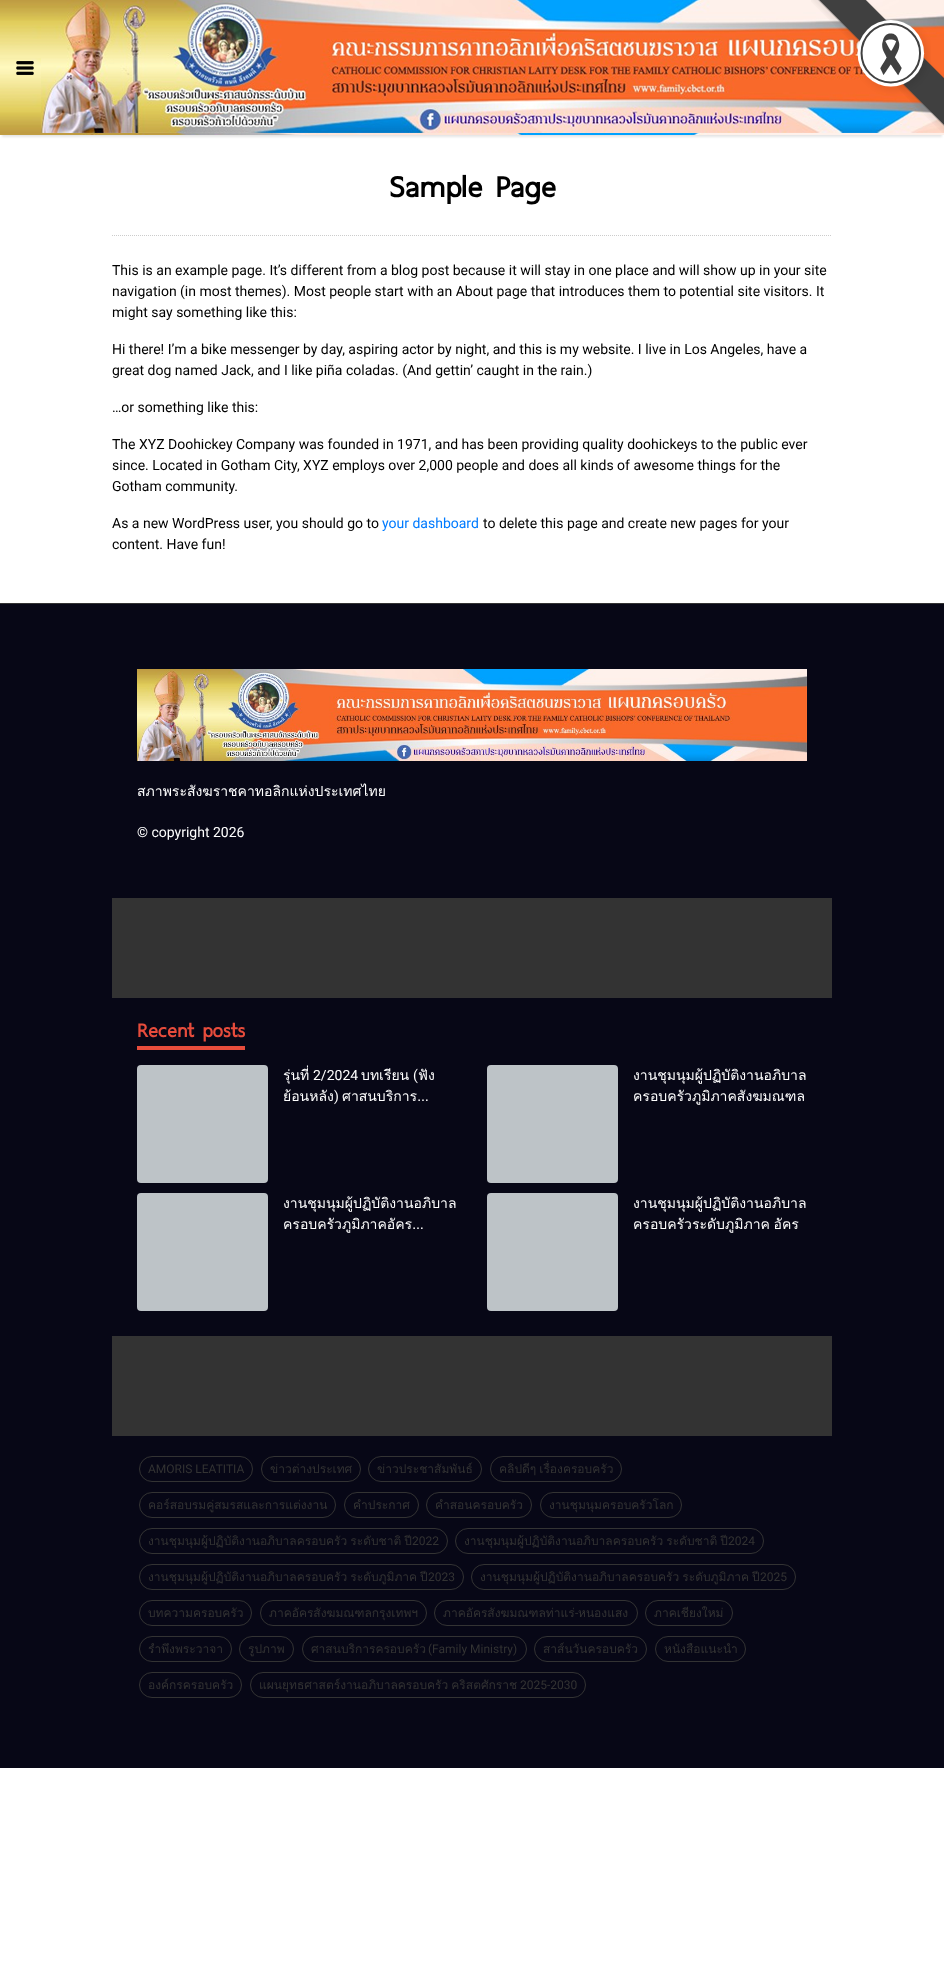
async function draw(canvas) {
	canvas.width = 944;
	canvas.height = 1981;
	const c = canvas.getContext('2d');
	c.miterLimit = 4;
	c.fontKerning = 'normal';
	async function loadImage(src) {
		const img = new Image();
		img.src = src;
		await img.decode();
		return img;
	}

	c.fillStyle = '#fff';
	c.fillRect(0, 0, 944, 1981);
	c.fillStyle = '#0000001a';
	c.filter = 'blur(1px)';
	c.beginPath();
	c.rect(2, 6, 940, 131);
	c.fill();
	c.filter = 'none';
	c.drawImage(await loadImage('img1.png'), 0, 0, 944, 135);
	c.drawImage(await loadImage('img2.png'), 16, 61, 18, 14);
	c.drawImage(await loadImage('img3.png'), 811, 0, 133, 133);
	c.beginPath();
	c.moveTo(112, 235.5);
	c.lineTo(832, 235.5);
	c.strokeStyle = '#ccc';
	c.setLineDash([1, 1]);
	c.stroke();
	c.font = 'bold 40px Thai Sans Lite';
	c.fillStyle = '#000';
	c.fillText('Sample Page', 389, 197);
	c.font = '14px Roboto';
	for (const [text, x, y] of [
		['This is an example page. It’s different from a blog post because it will stay in one place and will show up in your site', 112, 275],
		['navigation (in most themes). Most people start with an About page that introduces them to potential site visitors. It', 112, 296],
		['might say something like this:', 112, 317],
		['Hi there! I’m a bike messenger by day, aspiring actor by night, and this is my website. I live in Los Angeles, have a', 112, 354],
		['great dog named Jack, and I like piña coladas. (And gettin’ caught in the rain.)', 112, 375],
		['…or something like this:', 112, 412],
		['The XYZ Doohickey Company was founded in 1971, and has been providing quality doohickeys to the public ever', 112, 449],
		['since. Located in Gotham City, XYZ employs over 2,000 people and does all kinds of awesome things for the', 112, 470],
		['Gotham community.', 112, 491],
		['As a new WordPress user, you should go to', 112, 528],
	]) {
		c.fillText(text, x, y);
	}
	c.fillStyle = '#007bff';
	c.fillText('your dashboard', 382, 528);
	c.fillStyle = '#000';
	c.fillText('to delete this page and create new pages for your', 483, 528);
	c.fillText('content. Have fun!', 112, 549);
	for (const [x, y, w, h, color] of [
		[0, 604, 944, 1164, '#070716'],
		[0, 603, 944, 1, '#333'],
		[112, 898, 720, 100, '#333'],
	]) {
		c.fillStyle = color;
		c.fillRect(x, y, w, h);
	}
	c.drawImage(await loadImage('img4.png'), 137, 669, 670, 92);
	c.font = '14px Loma';
	c.fillStyle = '#fff';
	c.fillText('สภาพระสังฆราชคาทอลิกแห่งประเทศไทย', 137, 796);
	c.font = '14px Roboto';
	c.fillText('© copyright 2026', 137, 837);
	c.fillStyle = '#333';
	c.fillRect(112, 1336, 720, 100);
	c.fillStyle = '#e74c3c';
	c.fillRect(137, 1046, 108, 4);
	c.font = 'bold 26px Thai Sans Lite';
	c.fillText('Recent posts', 137, 1037);
	c.fillStyle = '#bdc3c7';
	c.beginPath();
	c.roundRect(137, 1065, 131, 118, 4);
	c.fill();
	c.save();
	c.beginPath();
	c.rect(283, 1065, 174, 42);
	c.clip();
	c.font = '14px Loma';
	c.fillStyle = '#fff';
	c.fillText('รุ่นที่', 283, 1080);
	c.restore();
	c.font = '14px Loma';
	c.fillStyle = '#fff';
	c.fillText('บทเรียน', 361, 1080);
	c.font = '14px Roboto';
	c.fillText('(', 413, 1080);
	c.font = '14px Loma';
	c.fillText('ฟัง', 418, 1080);
	c.font = '14px Roboto';
	c.fillText('2/2024', 313, 1080);
	c.save();
	c.beginPath();
	c.rect(283, 1065, 174, 42);
	c.clip();
	c.font = '14px Loma';
	c.fillText('ย้อนหลัง', 283, 1101);
	c.restore();
	c.fillText(')', 334, 1101);
	c.font = '14px Loma';
	c.fillText('ศาสนบริการ…', 342, 1101);
	c.fillStyle = '#bdc3c7';
	c.beginPath();
	c.roundRect(487, 1065, 131, 118, 4);
	c.fill();
	c.fillStyle = '#fff';
	c.fillText('งานชุมนุมผู้ปฏิบัติงานอภิบาล', 633, 1080);
	c.fillText('ครอบครัวภูมิภาคสังฆมณฑล', 633, 1101);
	c.fillStyle = '#bdc3c7';
	c.beginPath();
	c.roundRect(137, 1193, 131, 118, 4);
	c.fill();
	c.fillStyle = '#fff';
	c.fillText('งานชุมนุมผู้ปฏิบัติงานอภิบาล', 283, 1208);
	c.fillText('ครอบครัวภูมิภาคอัคร…', 283, 1229);
	c.fillStyle = '#bdc3c7';
	c.beginPath();
	c.roundRect(487, 1193, 131, 118, 4);
	c.fill();
	c.fillStyle = '#fff';
	c.fillText('งานชุมนุมผู้ปฏิบัติงานอภิบาล', 633, 1208);
	c.wordSpacing = '-1px';
	c.fillText('ครอบครัวระดับภูมิภาค อัคร', 633, 1229);
	c.beginPath();
	c.roundRect(139.5, 1456.5, 113, 25, 12.5);
	c.strokeStyle = '#333';
	c.setLineDash([]);
	c.stroke();
	c.wordSpacing = '0px';
	c.font = '12px Roboto';
	c.fillStyle = '#333';
	c.fillText('AMORIS LEATITIA', 148, 1473);
	c.beginPath();
	c.roundRect(261.5, 1456.5, 99, 25, 12.5);
	c.stroke();
	c.font = '12px Loma';
	c.fillText('ข่าวต่างประเทศ', 270, 1473);
	c.beginPath();
	c.roundRect(368.5, 1456.5, 113, 25, 12.5);
	c.stroke();
	c.fillText('ข่าวประชาสัมพันธ์', 377, 1473);
	c.beginPath();
	c.roundRect(490.5, 1456.5, 131, 25, 12.5);
	c.stroke();
	c.wordSpacing = '-1px';
	c.fillText('คลิปดีๆ เรื่องครอบครัว', 499, 1473);
	c.beginPath();
	c.roundRect(139.5, 1492.5, 196, 25, 12.5);
	c.stroke();
	c.wordSpacing = '0px';
	c.fillText('คอร์สอบรมคู่สมรสและการแต่งงาน', 148, 1509);
	c.beginPath();
	c.roundRect(344.5, 1492.5, 74, 25, 12.5);
	c.stroke();
	c.fillText('คำประกาศ', 353, 1509);
	c.beginPath();
	c.roundRect(426.5, 1492.5, 105, 25, 12.5);
	c.stroke();
	c.fillText('คำสอนครอบครัว', 435, 1509);
	c.beginPath();
	c.roundRect(540.5, 1492.5, 141, 25, 12.5);
	c.stroke();
	c.fillText('งานชุมนุมครอบครัวโลก', 549, 1509);
	c.beginPath();
	c.roundRect(139.5, 1528.5, 308, 25, 12.5);
	c.stroke();
	c.wordSpacing = '-1px';
	c.fillText('งานชุมนุมผู้ปฏิบัติงานอภิบาลครอบครัว ระดับชาติ ปี', 148, 1545);
	c.wordSpacing = '0px';
	c.font = '12px Roboto';
	c.fillText('2022', 412, 1545);
	c.beginPath();
	c.roundRect(455.5, 1528.5, 308, 25, 12.5);
	c.stroke();
	c.wordSpacing = '-1px';
	c.font = '12px Loma';
	c.fillText('งานชุมนุมผู้ปฏิบัติงานอภิบาลครอบครัว ระดับชาติ ปี', 464, 1545);
	c.wordSpacing = '0px';
	c.font = '12px Roboto';
	c.fillText('2024', 728, 1545);
	c.beginPath();
	c.roundRect(139.5, 1564.5, 324, 25, 12.5);
	c.stroke();
	c.wordSpacing = '-1px';
	c.font = '12px Loma';
	c.fillText('งานชุมนุมผู้ปฏิบัติงานอภิบาลครอบครัว ระดับภูมิภาค ปี', 148, 1581);
	c.wordSpacing = '0px';
	c.font = '12px Roboto';
	c.fillText('2023', 428, 1581);
	c.beginPath();
	c.roundRect(471.5, 1564.5, 324, 25, 12.5);
	c.stroke();
	c.wordSpacing = '-1px';
	c.font = '12px Loma';
	c.fillText('งานชุมนุมผู้ปฏิบัติงานอภิบาลครอบครัว ระดับภูมิภาค ปี', 480, 1581);
	c.wordSpacing = '0px';
	c.font = '12px Roboto';
	c.fillText('2025', 760, 1581);
	c.beginPath();
	c.roundRect(139.5, 1600.5, 112, 25, 12.5);
	c.stroke();
	c.font = '12px Loma';
	c.fillText('บทความครอบครัว', 148, 1617);
	c.beginPath();
	c.roundRect(260.5, 1600.5, 166, 25, 12.5);
	c.stroke();
	c.fillText('ภาคอัครสังฆมณฑลกรุงเทพฯ', 269, 1617);
	c.beginPath();
	c.roundRect(434.5, 1600.5, 203, 25, 12.5);
	c.stroke();
	c.fillText('ภาคอัครสังฆมณฑลท่าแร่', 443, 1617);
	c.font = '12px Roboto';
	c.fillText('-', 575, 1617);
	c.font = '12px Loma';
	c.fillText('หนองแสง', 578, 1617);
	c.beginPath();
	c.roundRect(645.5, 1600.5, 87, 25, 12.5);
	c.stroke();
	c.fillText('ภาคเชียงใหม่', 654, 1617);
	c.beginPath();
	c.roundRect(139.5, 1636.5, 92, 25, 12.5);
	c.stroke();
	c.fillText('รำพึงพระวาจา', 148, 1653);
	c.beginPath();
	c.roundRect(239.5, 1636.5, 54, 25, 12.5);
	c.stroke();
	c.fillText('รูปภาพ', 248, 1653);
	c.beginPath();
	c.roundRect(302.5, 1636.5, 224, 25, 12.5);
	c.stroke();
	c.fillText('ศาสนบริการครอบครัว', 311, 1653);
	c.font = '12px Roboto';
	c.fillText('(Family Ministry)', 428, 1653);
	c.beginPath();
	c.roundRect(534.5, 1636.5, 112, 25, 12.5);
	c.stroke();
	c.font = '12px Loma';
	c.fillText('สาส์นวันครอบครัว', 543, 1653);
	c.beginPath();
	c.roundRect(655.5, 1636.5, 90, 25, 12.5);
	c.stroke();
	c.fillText('หนังสือแนะนำ', 664, 1653);
	c.beginPath();
	c.roundRect(139.5, 1672.5, 102, 25, 12.5);
	c.stroke();
	c.fillText('องค์กรครอบครัว', 148, 1689);
	c.beginPath();
	c.roundRect(250.5, 1672.5, 335, 25, 12.5);
	c.stroke();
	c.wordSpacing = '-1px';
	c.fillText('แผนยุทธศาสตร์งานอภิบาลครอบครัว คริสตศักราช', 259, 1689);
	c.wordSpacing = '0px';
	c.font = '12px Roboto';
	c.fillText('2025-2030', 520, 1689);
}

draw(document.querySelector('canvas'));
